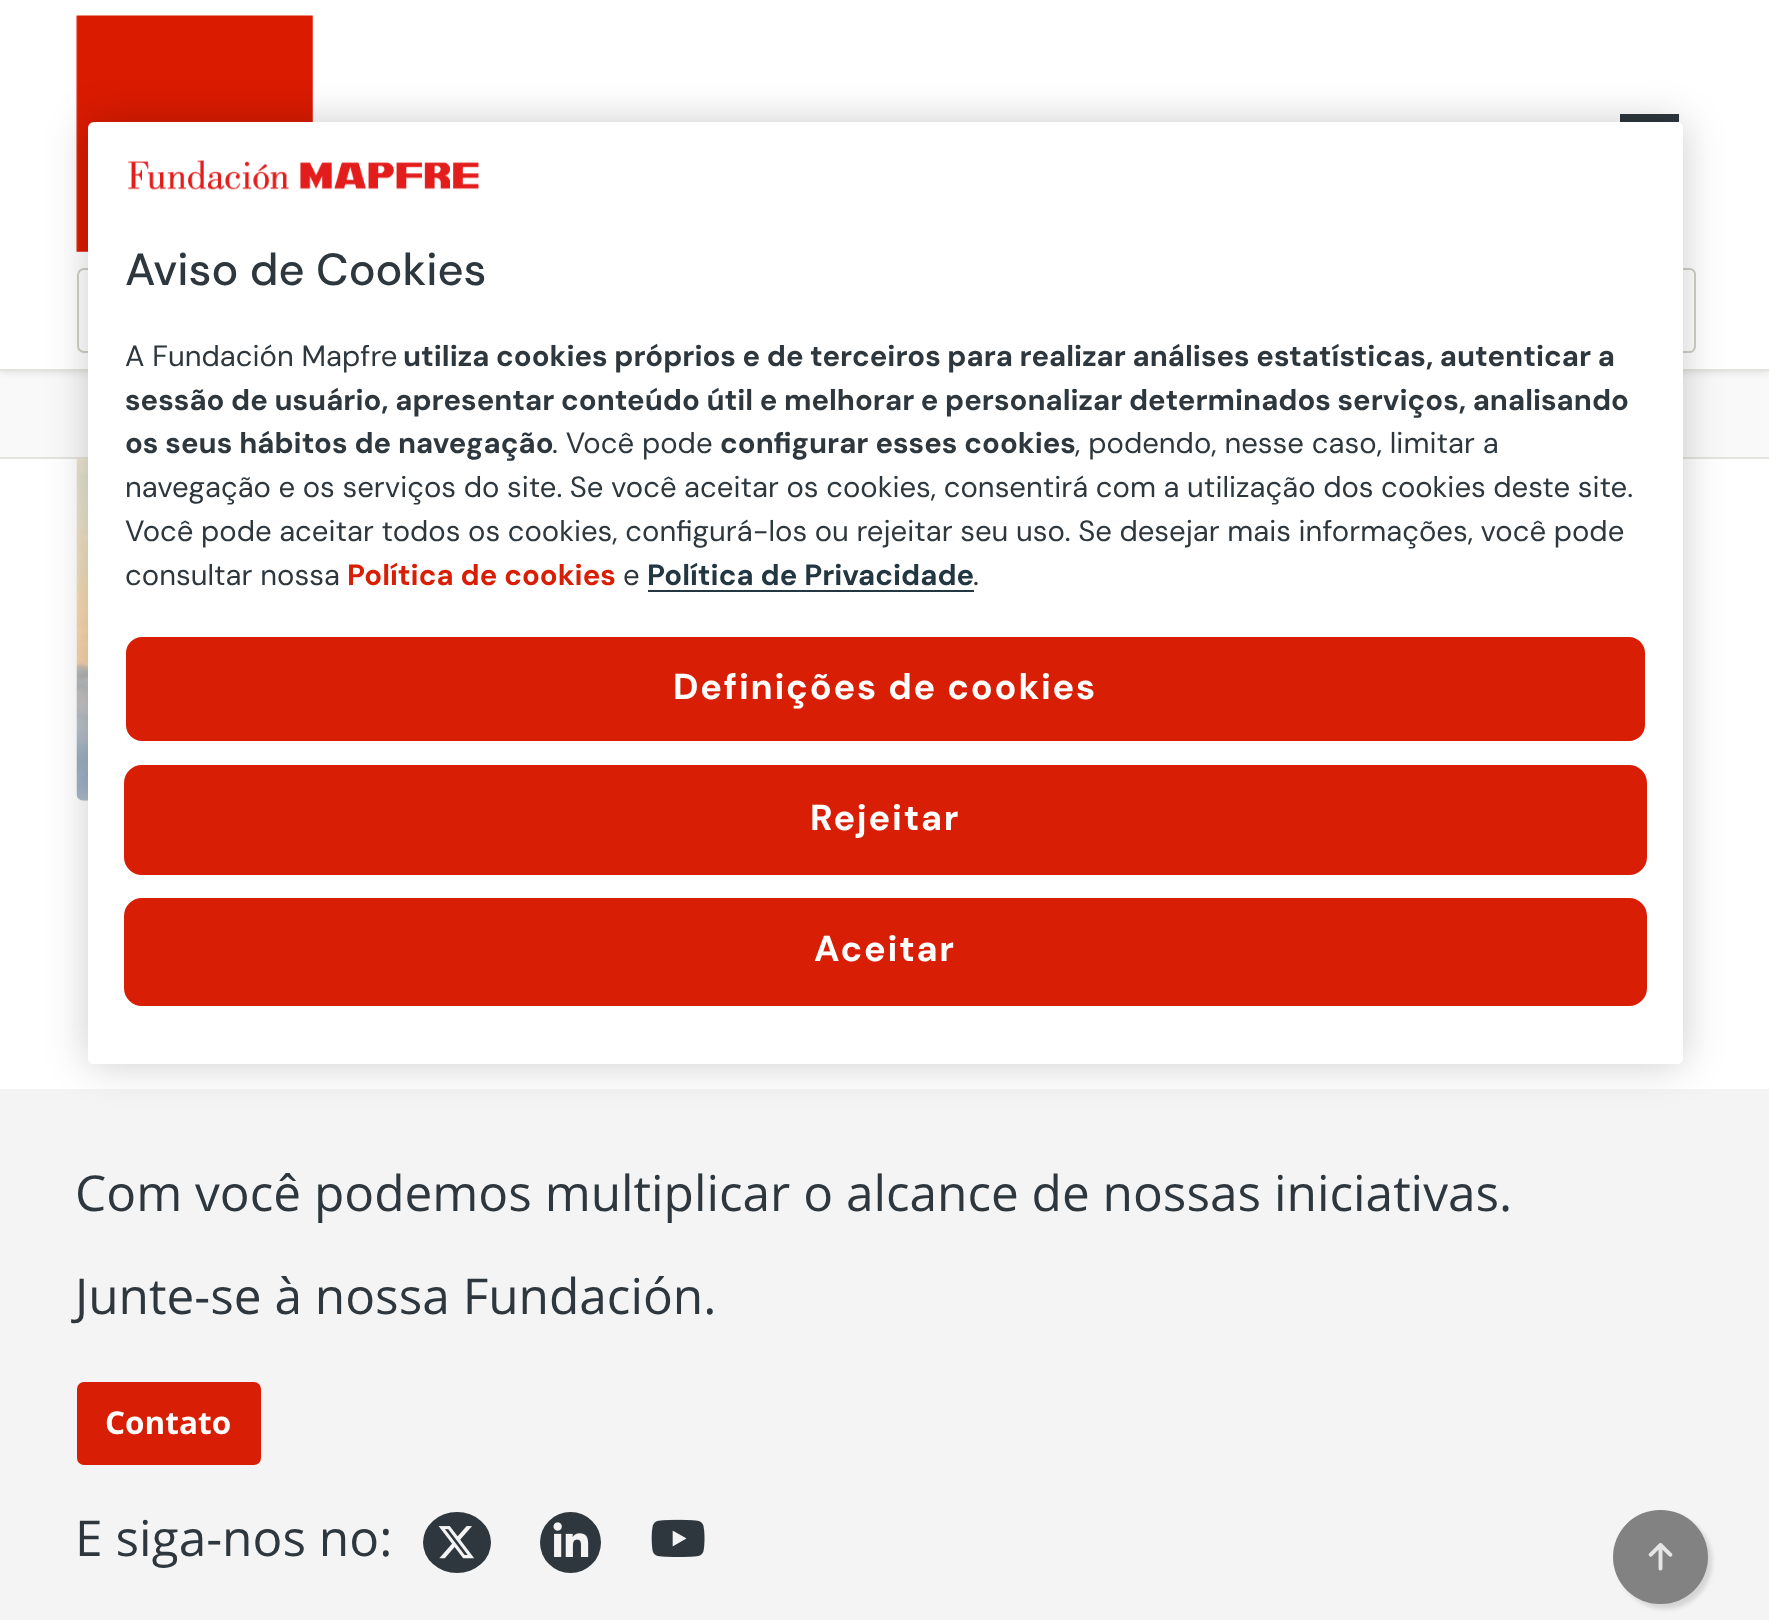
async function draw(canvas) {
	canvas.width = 1769;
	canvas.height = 1620;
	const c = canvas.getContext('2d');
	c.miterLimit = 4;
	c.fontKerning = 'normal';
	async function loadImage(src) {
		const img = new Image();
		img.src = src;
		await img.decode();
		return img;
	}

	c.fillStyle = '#fff';
	c.fillRect(0, 0, 1769, 1620);
	c.fillStyle = '#f9f9f9';
	c.fillRect(0, 371, 1769, 86);
	c.fillStyle = '#00000033';
	c.filter = 'blur(5.5px)';
	c.beginPath();
	c.rect(0, -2, 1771, 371);
	c.fill();
	c.filter = 'none';
	c.fillStyle = '#fff';
	c.fillRect(0, 0, 1769, 369);
	c.fillStyle = '#e4e3db';
	c.fillRect(0, 369, 1769, 2);
	c.drawImage(await loadImage('img1.png'), 76, 15, 237, 237);
	c.fillStyle = '#2d373d';
	c.beginPath();
	c.moveTo(1620, 114);
	c.lineTo(1679, 114);
	c.lineTo(1679, 122);
	c.lineTo(1620, 122);
	c.closePath();
	c.moveTo(1620, 130);
	c.lineTo(1679, 130);
	c.lineTo(1679, 139);
	c.lineTo(1620, 139);
	c.closePath();
	c.moveTo(1620, 147);
	c.lineTo(1679, 147);
	c.lineTo(1679, 156);
	c.lineTo(1620, 156);
	c.closePath();
	c.fill();
	c.beginPath();
	c.roundRect(78, 269, 1530, 83, [6, 0, 0, 6]);
	c.strokeStyle = '#d1d0c7';
	c.lineWidth = 2;
	c.stroke();
	c.fillStyle = '#d1d0c7';
	c.beginPath();
	c.moveTo(1609, 268);
	c.lineTo(1690, 268);
	c.bezierCurveTo(1693, 268, 1696, 271, 1696, 274);
	c.lineTo(1696, 346);
	c.bezierCurveTo(1696, 350, 1693, 353, 1690, 353);
	c.lineTo(1609, 353);
	c.closePath();
	c.moveTo(1609, 270);
	c.lineTo(1690, 270);
	c.bezierCurveTo(1692, 270, 1694, 272, 1694, 274);
	c.lineTo(1694, 346);
	c.bezierCurveTo(1694, 349, 1692, 351, 1690, 351);
	c.lineTo(1609, 351);
	c.closePath();
	c.fill('evenodd');
	c.fillStyle = '#e4e3db';
	c.fillRect(0, 457, 1769, 2);
	c.drawImage(await loadImage('img3.png'), 76, 459, 12, 342);
	c.fillStyle = '#f4f4f4';
	c.fillRect(0, 1089, 1769, 531);
	c.save();
	c.beginPath();
	c.moveTo(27, 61);
	c.lineTo(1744, 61);
	c.lineTo(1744, 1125);
	c.lineTo(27, 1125);
	c.closePath();
	c.moveTo(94, 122);
	c.lineTo(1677, 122);
	c.bezierCurveTo(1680.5, 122, 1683, 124.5, 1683, 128);
	c.lineTo(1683, 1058);
	c.bezierCurveTo(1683, 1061.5, 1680.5, 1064, 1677, 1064);
	c.lineTo(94, 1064);
	c.bezierCurveTo(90.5, 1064, 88, 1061.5, 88, 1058);
	c.lineTo(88, 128);
	c.bezierCurveTo(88, 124.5, 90.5, 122, 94, 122);
	c.closePath();
	c.clip('evenodd');
	c.fillStyle = '#00000033';
	c.filter = 'blur(20px)';
	c.beginPath();
	c.roundRect(88, 122, 1595, 942, 6);
	c.fill();
	c.filter = 'none';
	c.restore();
	c.fillStyle = '#fff';
	c.beginPath();
	c.roundRect(88, 122, 1595, 942, 6);
	c.fill();
	c.drawImage(await loadImage('img2.png'), 128, 159, 351, 31);
	c.font = '500 45px DM Sans';
	c.fillStyle = '#2d373d';
	c.fillText('Aviso de Cookies', 125, 285);
	c.font = '29.25px DM Sans';
	c.fillText('A Fundación Mapfre', 125, 366);
	c.wordSpacing = '-0.3px';
	c.font = 'bold 29.25px DM Sans';
	c.fillText('utiliza cookies próprios e de terceiros para realizar análises estatísticas, autenticar a', 403, 366);
	c.fillText('sessão de usuário, apresentar conteúdo útil e melhorar e personalizar determinados serviços, analisando', 125, 410);
	c.wordSpacing = '0px';
	c.fillText('os seus hábitos de navegação', 125, 453);
	c.font = '29.25px DM Sans';
	c.fillText('. Você pode', 552, 453);
	c.font = 'bold 29.25px DM Sans';
	c.fillText('configurar esses cookies', 720, 453);
	c.font = '29.25px DM Sans';
	c.fillText(', podendo, nesse caso, limitar a', 1075, 453);
	c.wordSpacing = '-0.25px';
	c.fillText('navegação e os serviços do site. Se você aceitar os cookies, consentirá com a utilização dos cookies deste site.', 125, 497);
	c.fillText('Você pode aceitar todos os cookies, configurá-los ou rejeitar seu uso. Se desejar mais informações, você pode', 125, 541);
	c.wordSpacing = '0px';
	c.fillText('consultar nossa', 125, 585);
	c.font = 'bold 29.25px DM Sans';
	c.fillStyle = '#d81e05';
	c.fillText('Política de cookies', 347, 585);
	c.font = '29.25px DM Sans';
	c.fillStyle = '#2d373d';
	c.fillText('e', 623, 585);
	c.font = 'bold 29.25px DM Sans';
	c.fillStyle = '#233742';
	c.fillText('Política de Privacidade', 647, 585);
	c.fillRect(648, 590, 326, 2);
	c.font = '29.25px DM Sans';
	c.fillStyle = '#2d373d';
	c.fillText('.', 973, 585);
	c.fillStyle = '#d81e05';
	c.beginPath();
	c.roundRect(125, 636, 1521, 106, 17);
	c.fill();
	c.strokeStyle = '#fff';
	c.stroke();
	c.letterSpacing = '1.8px';
	c.font = 'bold 36px "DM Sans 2"';
	c.fillStyle = '#fff';
	c.fillText('Definições de cookies', 673, 699);
	c.fillStyle = '#d81e05';
	c.beginPath();
	c.roundRect(125, 766, 1521, 108, 17);
	c.fill();
	c.strokeStyle = '#d81e05';
	c.stroke();
	c.fillStyle = '#fff';
	c.fillText('Rejeitar', 810, 830);
	c.fillStyle = '#d81e05';
	c.beginPath();
	c.roundRect(125, 899, 1521, 106, 17);
	c.fill();
	c.stroke();
	c.fillStyle = '#fff';
	c.fillText('Aceitar', 814, 961);
	c.letterSpacing = '0px';
	c.font = '49.5px Open Sans';
	c.fillStyle = '#2d373d';
	c.fillText('Com você podemos multiplicar o alcance de nossas iniciativas.', 75, 1211);
	c.fillText('Junte-se à nossa Fundación.', 75, 1314);
	c.fillStyle = '#d81e05';
	c.beginPath();
	c.roundRect(78, 1383, 182, 81, 6);
	c.fill();
	c.stroke();
	c.font = 'bold 31.5px Open Sans';
	c.fillStyle = '#fff';
	c.fillText('Contato', 105, 1434);
	c.font = '49.5px Open Sans';
	c.fillStyle = '#2d373d';
	c.fillText('E siga-nos no:', 75, 1556);
	c.beginPath();
	c.ellipse(457, 1542.5, 34, 30.5, 0, 0, 2 * Math.PI);
	c.fill();
	c.drawImage(await loadImage('img4.png'), 438, 1526, 37, 33);
	c.beginPath();
	c.arc(570.5, 1542.5, 30.5, 0, 2 * Math.PI);
	c.fill();
	c.drawImage(await loadImage('img5.png'), 553, 1522, 36, 35);
	c.drawImage(await loadImage('img6.png'), 651, 1519, 54, 38);
	c.fillStyle = '#5a5a5a33';
	c.filter = 'blur(2px)';
	c.beginPath();
	c.roundRect(1618, 1514, 94, 95, 47);
	c.fill();
	c.filter = 'none';
	c.fillStyle = '#828282';
	c.beginPath();
	c.roundRect(1613, 1510, 95, 94, 47);
	c.fill();
	c.drawImage(await loadImage('img7.png'), 1648, 1543, 25, 28);
}

draw(document.querySelector('canvas'));
